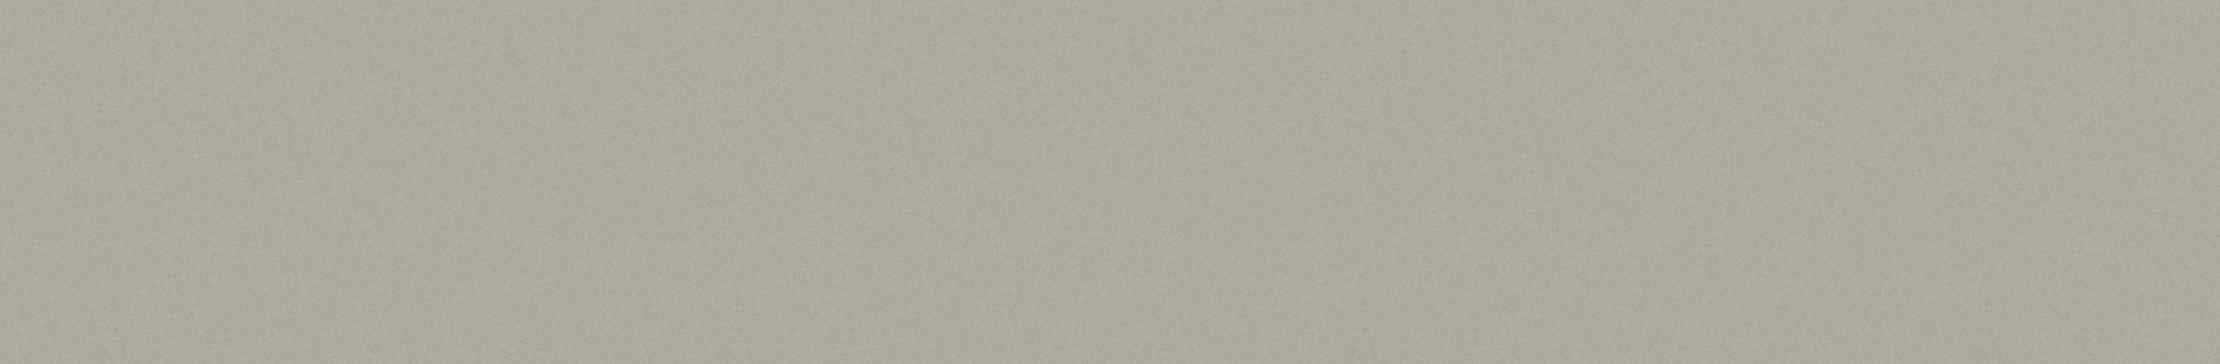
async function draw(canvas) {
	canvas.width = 2220;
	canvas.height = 364;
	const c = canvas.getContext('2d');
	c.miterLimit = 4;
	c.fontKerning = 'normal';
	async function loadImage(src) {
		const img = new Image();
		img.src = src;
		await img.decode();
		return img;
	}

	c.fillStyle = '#b0ab9f';
	c.fillRect(0, 0, 2220, 364);
	c.drawImage(await loadImage('img1.png'), 0, 0, 2220, 364);
}

draw(document.querySelector('canvas'));
